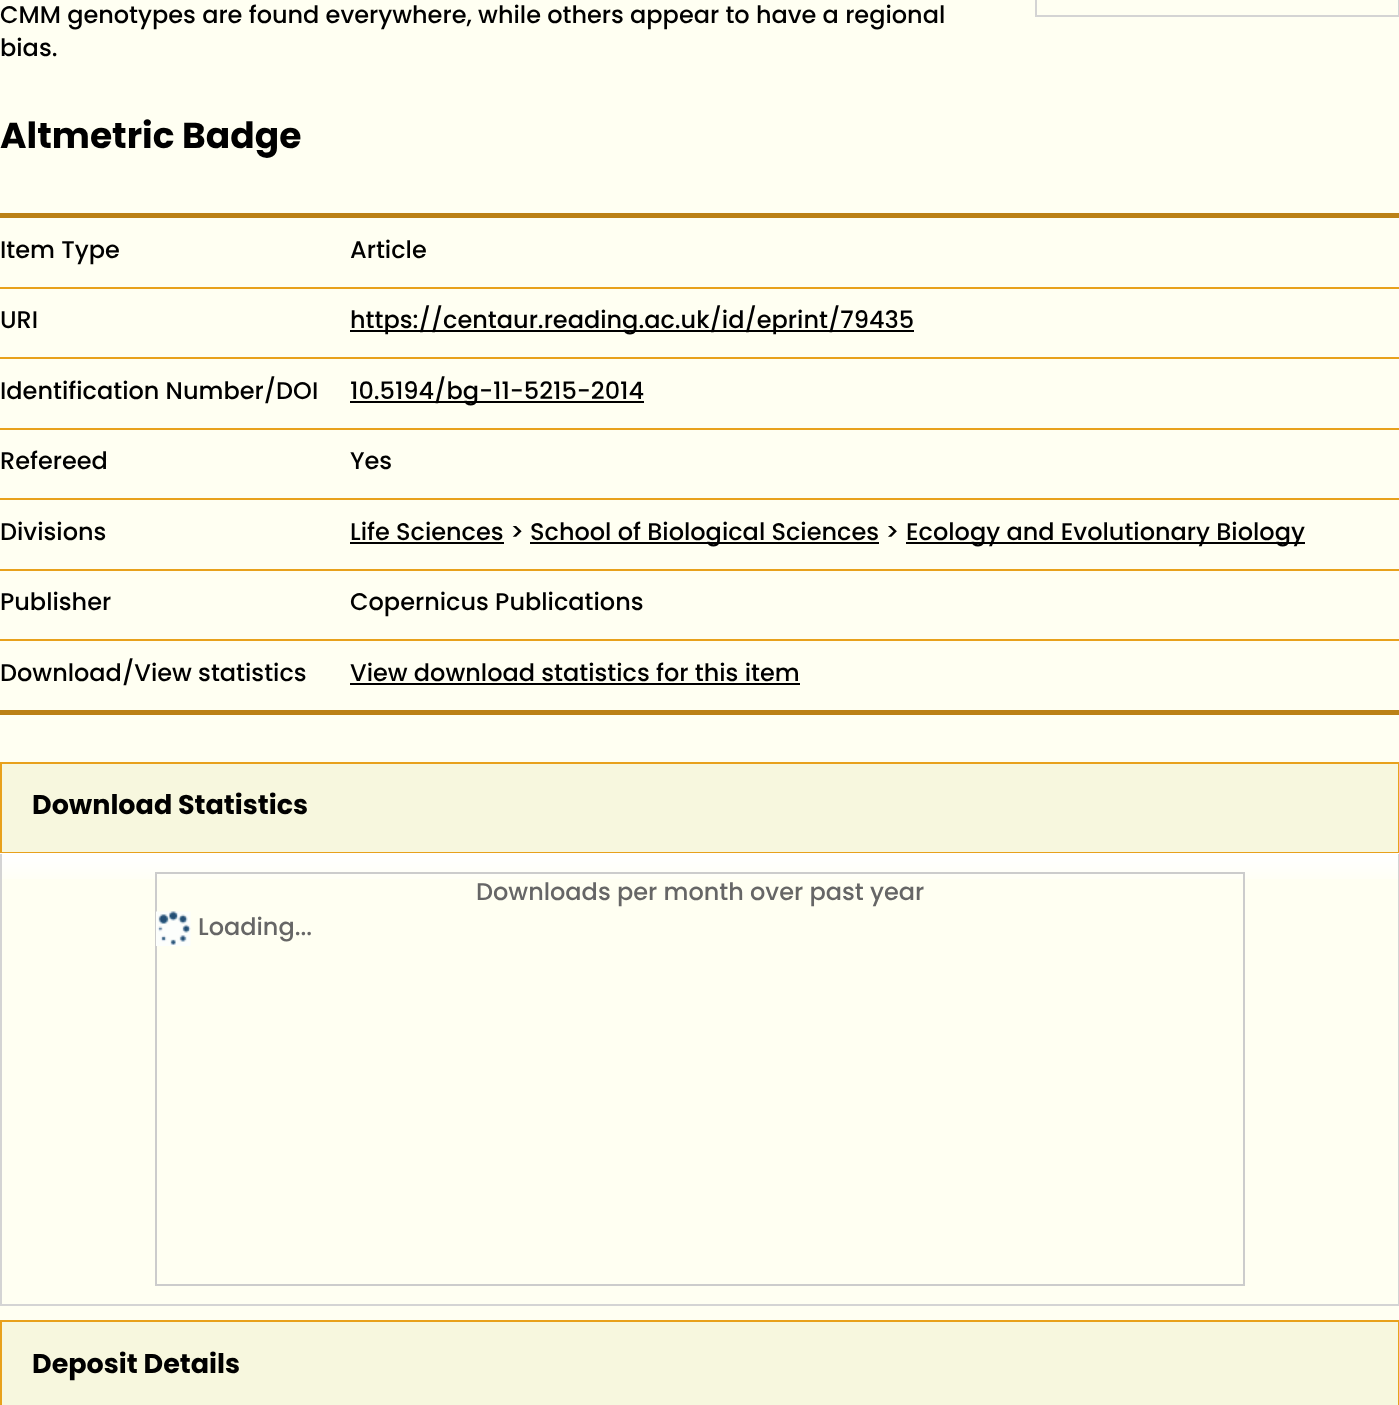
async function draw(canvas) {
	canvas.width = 1399;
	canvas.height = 1405;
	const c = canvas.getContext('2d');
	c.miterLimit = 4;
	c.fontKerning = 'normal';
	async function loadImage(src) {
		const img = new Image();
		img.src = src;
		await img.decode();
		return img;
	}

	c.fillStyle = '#fffff2';
	c.fillRect(0, 0, 1399, 1405);
	for (const [x, y, w, h, color] of [
		[1398, 0, 1, 17, '#d4d4d4'],
		[1035, 15, 364, 2, '#d4d4d4'],
		[1035, 0, 2, 17, '#d4d4d4'],
	]) {
		c.fillStyle = color;
		c.fillRect(x, y, w, h);
	}
	c.font = '500 24px Poppins';
	c.fillStyle = '#000';
	c.fillText('CMM genotypes are found everywhere, while others appear to have a regional', 0, 23);
	c.fillText('bias.', 0, 56);
	c.font = 'bold 36px Poppins';
	c.fillText('Altmetric Badge', 0, 148);
	for (const [x, y, w, h, color] of [
		[0, 213, 1399, 5, '#bb8116'],
		[0, 710, 1399, 5, '#bb8116'],
		[0, 287, 1399, 2, '#e8a11c'],
	]) {
		c.fillStyle = color;
		c.fillRect(x, y, w, h);
	}
	c.font = '500 24px Poppins';
	c.fillStyle = '#000';
	c.fillText('Item Type', 0, 258);
	c.fillText('Article', 350, 258);
	c.fillStyle = '#e8a11c';
	c.fillRect(0, 357, 1399, 2);
	c.fillStyle = '#000';
	c.fillText('URI', 0, 328);
	c.fillRect(350, 330, 564, 2);
	c.fillText('https://centaur.reading.ac.uk/id/eprint/79435', 350, 328);
	c.fillStyle = '#e8a11c';
	c.fillRect(0, 428, 1399, 2);
	c.fillStyle = '#000';
	c.fillText('Identification Number/DOI', 0, 399);
	c.fillRect(350, 401, 294, 2);
	c.fillText('10.5194/bg-11-5215-2014', 350, 399);
	c.fillStyle = '#e8a11c';
	c.fillRect(0, 498, 1399, 2);
	c.fillStyle = '#000';
	c.fillText('Refereed', 0, 469);
	c.fillText('Yes', 350, 469);
	c.fillStyle = '#e8a11c';
	c.fillRect(0, 569, 1399, 2);
	c.fillStyle = '#000';
	c.fillText('Divisions', 0, 540);
	c.fillText('Life Sciences >', 350, 540);
	c.fillRect(350, 542, 154, 2);
	c.fillRect(530, 542, 349, 2);
	c.fillText('School of Biological Sciences >', 530, 540);
	c.fillRect(906, 542, 399, 2);
	c.fillText('Ecology and Evolutionary Biology', 906, 540);
	c.fillStyle = '#e8a11c';
	c.fillRect(0, 639, 1399, 2);
	c.fillStyle = '#000';
	for (const [text, x, y] of [
		['Publisher', 0, 610],
		['Copernicus Publications', 350, 610],
		['Download/View statistics', 0, 681],
		['View download statistics for this item', 350, 681],
	]) {
		c.fillText(text, x, y);
	}
	c.fillRect(350, 683, 450, 2);
	c.fillStyle = '#f7f7de';
	c.beginPath();
	c.rect(1, 763, 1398, 90);
	c.fill();
	c.strokeStyle = '#e8a11c';
	c.lineWidth = 2;
	c.stroke();
	c.font = 'bold 27px Poppins';
	c.fillStyle = '#000';
	c.fillText('Download Statistics', 32, 814);
	c.drawImage(await loadImage('img1.png'), 0, 853, 1399, 26);
	for (const [x, y, w, h, color] of [
		[1398, 854, 1, 451, '#d4d4d4'],
		[0, 1304, 1399, 2, '#d4d4d4'],
		[0, 854, 2, 451, '#d4d4d4'],
	]) {
		c.fillStyle = color;
		c.fillRect(x, y, w, h);
	}
	c.strokeStyle = '#ccc';
	c.strokeRect(156, 873, 1088, 412);
	c.font = '500 24px Poppins';
	c.fillStyle = '#666';
	c.fillText('Downloads per month over past year', 476, 900);
	c.drawImage(await loadImage('img2.png'), 156, 911, 35, 35);
	c.fillText('Loading...', 198, 935);
	c.fillStyle = '#f7f7de';
	c.beginPath();
	c.rect(1, 1321, 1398, 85);
	c.fill();
	c.strokeStyle = '#e8a11c';
	c.stroke();
	c.font = 'bold 27px Poppins';
	c.fillStyle = '#000';
	c.fillText('Deposit Details', 32, 1373);
}

draw(document.querySelector('canvas'));
